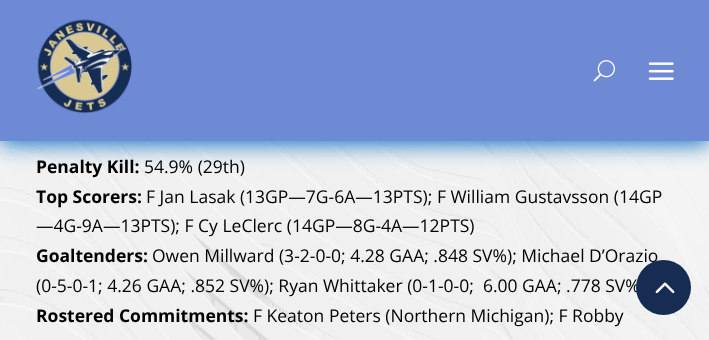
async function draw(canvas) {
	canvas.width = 709;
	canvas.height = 340;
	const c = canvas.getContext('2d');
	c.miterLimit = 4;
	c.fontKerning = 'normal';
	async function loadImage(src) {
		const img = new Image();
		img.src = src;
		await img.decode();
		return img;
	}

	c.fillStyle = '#fff';
	c.fillRect(0, 0, 709, 340);
	c.drawImage(await loadImage('img4.png'), 0, 141, 709, 199);
	c.fillStyle = '#0c71c3';
	c.filter = 'blur(11px)';
	c.beginPath();
	c.rect(0, 3, 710, 141);
	c.fill();
	c.filter = 'none';
	c.fillStyle = '#6f8ad4';
	c.fillRect(0, 0, 709, 141);
	c.drawImage(await loadImage('img1.png'), 37, 19, 95, 95);
	c.drawImage(await loadImage('img2.png'), 593, 60, 22, 22);
	c.drawImage(await loadImage('img3.png'), 648, 62, 26, 18);
	c.font = 'bold 17.5px Open Sans';
	c.fillStyle = '#000';
	c.fillText('Penalty Kill:', 36, 173);
	c.font = '17.5px Open Sans';
	c.fillText('54.9% (29th)', 144, 173);
	c.font = 'bold 17.5px Open Sans';
	c.fillText('Top Scorers:', 36, 203);
	c.font = '17.5px Open Sans';
	c.fillText('F Jan Lasak (13GP—7G-6A—13PTS); F William Gustavsson (14GP', 146, 203);
	c.fillText('—4G-9A—13PTS); F Cy LeClerc (14GP—8G-4A—12PTS)', 36, 232);
	c.font = 'bold 17.5px Open Sans';
	c.fillText('Goaltenders:', 36, 262);
	c.font = '17.5px Open Sans';
	c.fillText('Owen Millward (3-2-0-0; 4.28 GAA; .848 SV%); Michael D’Orazio', 152, 262);
	c.fillText('(0-5-0-1; 4.26 GAA; .852 SV%); Ryan Whittaker (0-1-0-0;  6.00 GAA; .778 SV%', 36, 292);
	c.font = 'bold 17.5px Open Sans';
	c.fillText('Rostered Commitments:', 36, 322);
	c.font = '17.5px Open Sans';
	c.fillText('F Keaton Peters (Northern Michigan); F Robby', 253, 322);
	c.fillStyle = '#162c52';
	c.beginPath();
	c.arc(663.5, 287.5, 27.5, 0, 2 * Math.PI);
	c.fill();
	c.drawImage(await loadImage('img5.png'), 655, 282, 20, 12);
}

draw(document.querySelector('canvas'));
